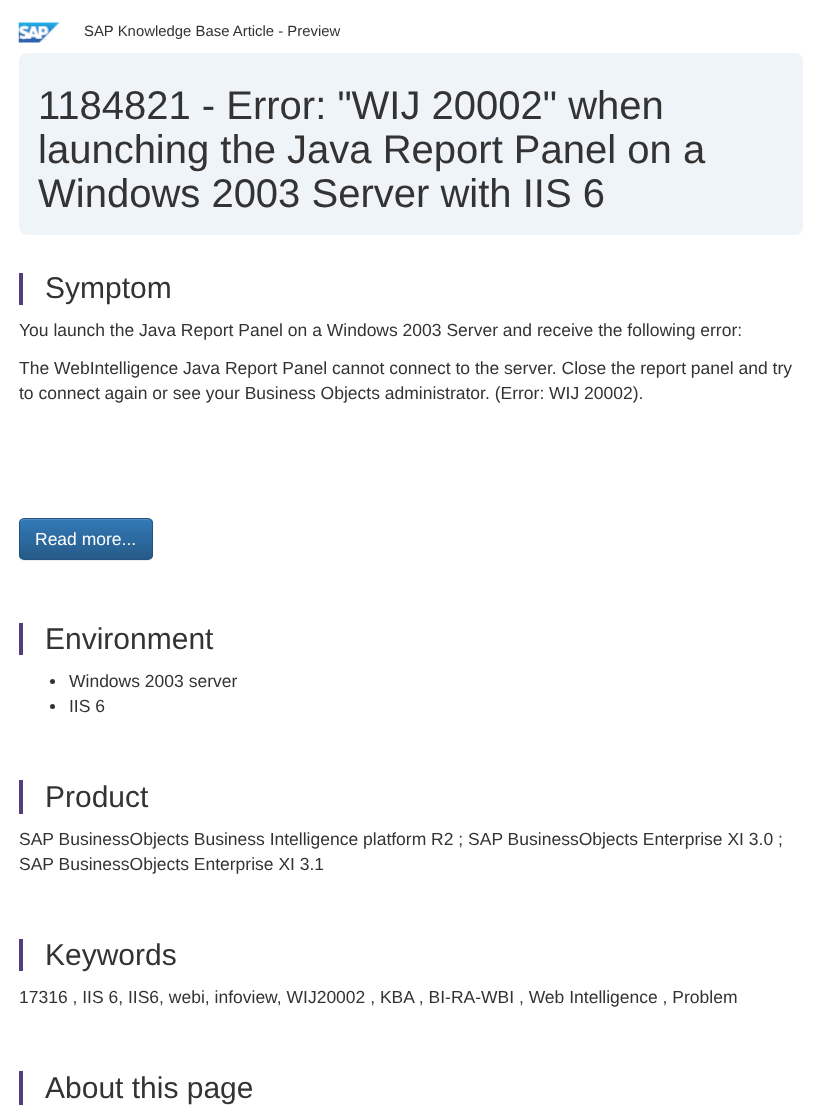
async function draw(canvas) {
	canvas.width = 821;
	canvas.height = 1112;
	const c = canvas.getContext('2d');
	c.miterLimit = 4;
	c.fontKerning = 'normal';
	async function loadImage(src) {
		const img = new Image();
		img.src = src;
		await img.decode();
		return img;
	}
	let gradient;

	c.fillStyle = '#fff';
	c.fillRect(0, 0, 821, 1112);
	c.drawImage(await loadImage('img1.png'), 18, 22, 41, 21);
	c.font = '14.9px Liberation Sans';
	c.fillStyle = '#333';
	c.fillText('SAP Knowledge Base Article - Preview', 84, 36);
	c.fillStyle = '#eff4f9';
	c.beginPath();
	c.roundRect(19, 53, 784, 182, 8);
	c.fill();
	c.font = '40px Liberation Sans';
	c.fillStyle = '#333';
	for (const [text, x, y] of [
		['1184821 - Error: "WIJ 20002" when', 38, 119],
		['launching the Java Report Panel on a', 38, 163],
		['Windows 2003 Server with IIS 6', 38, 207],
	]) {
		c.fillText(text, x, y);
	}
	c.fillStyle = '#563d7c';
	c.fillRect(19, 273, 4, 32);
	c.font = '30px Liberation Sans';
	c.fillStyle = '#333';
	c.fillText('Symptom', 45, 298);
	c.font = '17.5px Liberation Sans';
	for (const [text, x, y] of [
		['You launch the Java Report Panel on a Windows 2003 Server and receive the following error:', 19, 336],
		['The WebIntelligence Java Report Panel cannot connect to the server. Close the report panel and try', 19, 374],
		['to connect again or see your Business Objects administrator. (Error: WIJ 20002).', 19, 399],
	]) {
		c.fillText(text, x, y);
	}
	c.fillStyle = '#00000012';
	c.filter = 'blur(0.5px)';
	c.beginPath();
	c.roundRect(19, 519, 134, 42, 5);
	c.fill();
	c.filter = 'none';
	c.save();
	c.beginPath();
	c.roundRect(19, 518, 134, 42, 5);
	c.clip();
	gradient = c.createLinearGradient(86, 519, 86, 559);
	gradient.addColorStop(0, '#337ab7');
	gradient.addColorStop(1, '#265a88');
	c.fillStyle = gradient;
	c.fillRect(19, 519, 134, 40);
	c.restore();
	c.fillStyle = '#528ec1';
	c.beginPath();
	c.moveTo(24, 520);
	c.lineTo(148, 520);
	c.bezierCurveTo(150, 520, 151, 522, 151, 524);
	c.lineTo(151, 523);
	c.bezierCurveTo(151, 521, 149, 519, 147, 519);
	c.lineTo(24, 519);
	c.bezierCurveTo(22, 519, 20, 521, 20, 523);
	c.lineTo(20, 524);
	c.bezierCurveTo(20, 522, 22, 520, 24, 520);
	c.closePath();
	c.fill();
	c.beginPath();
	c.roundRect(19.5, 518.5, 133, 41, 4.5);
	c.strokeStyle = '#245580';
	c.stroke();
	c.fillStyle = '#fff';
	c.fillText('Read more...', 35, 545);
	c.fillStyle = '#563d7c';
	c.fillRect(19, 623, 4, 32);
	c.font = '30px Liberation Sans';
	c.fillStyle = '#333';
	c.fillText('Environment', 45, 649);
	c.beginPath();
	c.arc(52.5, 681.5, 2.5, 0, 2 * Math.PI);
	c.fill();
	c.font = '17.5px Liberation Sans';
	c.fillText('Windows 2003 server', 69, 687);
	c.beginPath();
	c.arc(52.5, 706.5, 2.5, 0, 2 * Math.PI);
	c.fill();
	c.fillText('IIS 6', 69, 712);
	c.fillStyle = '#563d7c';
	c.fillRect(19, 780, 4, 34);
	c.font = '30px Liberation Sans';
	c.fillStyle = '#333';
	c.fillText('Product', 45, 807);
	c.font = '17.5px Liberation Sans';
	c.fillText('SAP BusinessObjects Business Intelligence platform R2 ; SAP BusinessObjects Enterprise XI 3.0 ;', 19, 845);
	c.fillText('SAP BusinessObjects Enterprise XI 3.1', 19, 870);
	c.fillStyle = '#563d7c';
	c.fillRect(19, 939, 4, 32);
	c.font = '30px Liberation Sans';
	c.fillStyle = '#333';
	c.fillText('Keywords', 45, 965);
	c.font = '17.5px Liberation Sans';
	c.fillText('17316 , IIS 6, IIS6, webi, infoview, WIJ20002 , KBA , BI-RA-WBI , Web Intelligence , Problem', 19, 1003);
	c.fillStyle = '#563d7c';
	c.fillRect(19, 1071, 4, 34);
	c.font = '30px Liberation Sans';
	c.fillStyle = '#333';
	c.fillText('About this page', 45, 1098);
}

draw(document.querySelector('canvas'));
